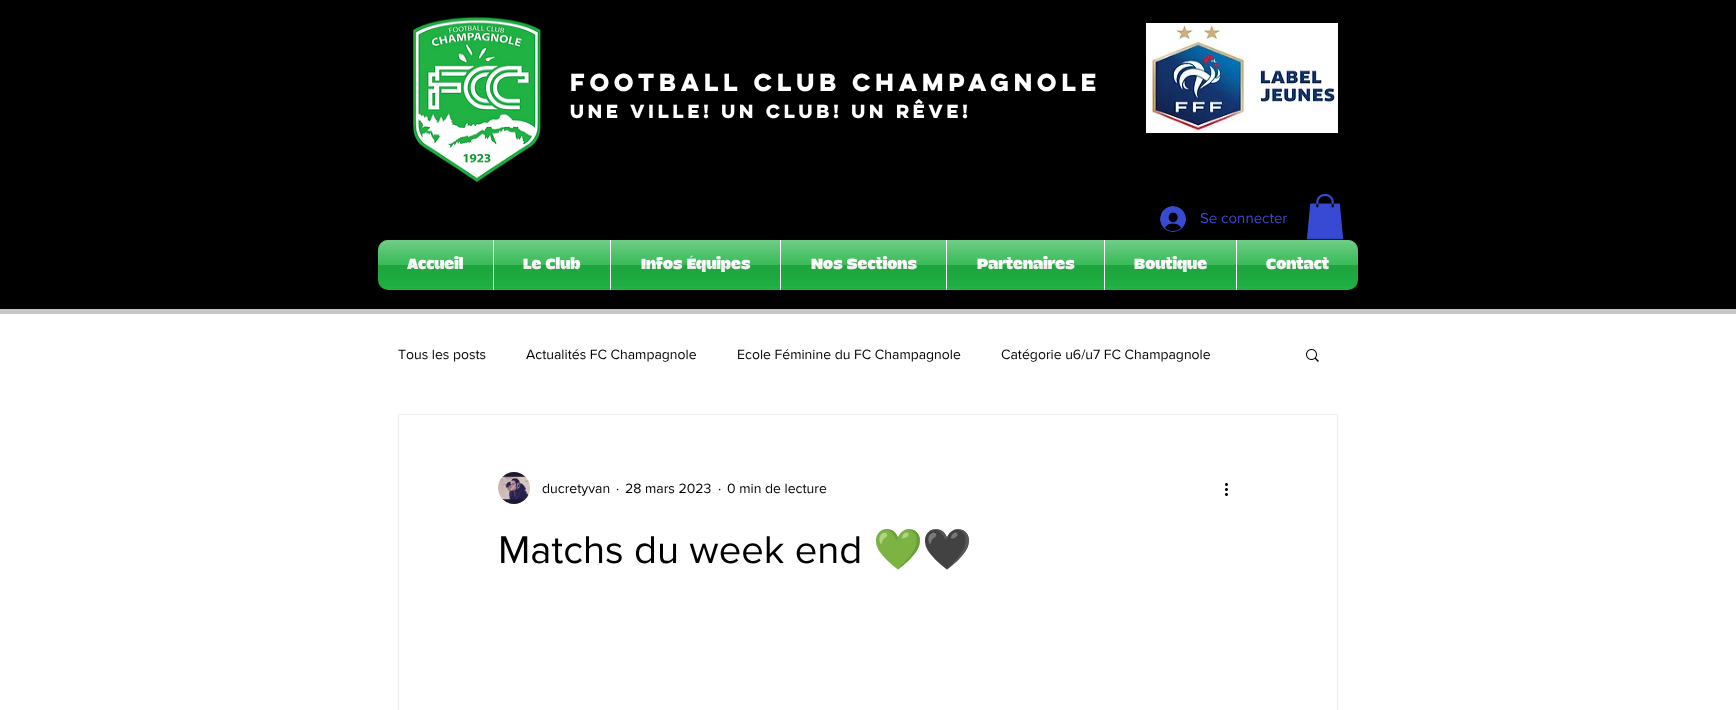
async function draw(canvas) {
	canvas.width = 1736;
	canvas.height = 710;
	const c = canvas.getContext('2d');
	c.miterLimit = 4;
	c.fontKerning = 'normal';
	async function loadImage(src) {
		const img = new Image();
		img.src = src;
		await img.decode();
		return img;
	}

	c.fillStyle = '#fff';
	c.fillRect(0, 0, 1736, 710);
	c.fillStyle = '#c7c7c7';
	c.fillRect(0, 309, 1736, 5);
	c.fillStyle = '#000';
	c.fillRect(0, 0, 1736, 309);
	c.drawImage(await loadImage('img1.png'), 413, 16, 128, 167);
	c.font = 'bold 22px "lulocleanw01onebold"';
	c.fillStyle = '#fff';
	c.fillText('football club champagnole', 570, 91);
	c.font = 'bold 17px "lulocleanw01onebold"';
	c.fillText('une ville! un club! un rêve!', 570, 118);
	c.drawImage(await loadImage('img2.png'), 1146, 23, 192, 110);
	c.drawImage(await loadImage('img3.png'), 1160, 206, 26, 26);
	c.font = '15px "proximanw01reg"';
	c.fillStyle = '#384ad3';
	c.fillText('Se connecter', 1200, 223);
	c.drawImage(await loadImage('img4.png'), 1306, 194, 38, 46);
	c.fillStyle = '#00000099';
	c.filter = 'blur(2px)';
	c.beginPath();
	c.roundRect(378, 241, 980, 50, 10);
	c.fill();
	c.filter = 'none';
	c.drawImage(await loadImage('img5.png'), 378, 240, 980, 42);
	c.fillStyle = '#20b243';
	c.beginPath();
	c.roundRect(378, 240, 115, 50, [10, 0, 0, 10]);
	c.fill();
	c.font = '16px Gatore';
	c.fillStyle = '#fff';
	c.fillText('Accueil', 407, 269);
	c.drawImage(await loadImage('img6.png'), 378, 240, 115, 46);
	c.fillStyle = '#20b243';
	c.fillRect(494, 240, 116, 50);
	c.fillStyle = '#fff';
	c.fillRect(493, 240, 1, 50);
	c.fillText('Le Club', 523, 269);
	c.drawImage(await loadImage('img7.png'), 494, 240, 116, 46);
	c.fillStyle = '#20b243';
	c.fillRect(611, 240, 169, 50);
	c.fillStyle = '#fff';
	c.fillRect(610, 240, 1, 50);
	c.fillText('Infos Équipes', 641, 269);
	c.drawImage(await loadImage('img8.png'), 611, 240, 169, 46);
	c.fillStyle = '#20b243';
	c.fillRect(781, 240, 165, 50);
	c.fillStyle = '#fff';
	c.fillRect(780, 240, 1, 50);
	c.fillText('Nos Sections', 811, 269);
	c.drawImage(await loadImage('img9.png'), 781, 240, 165, 46);
	c.fillStyle = '#20b243';
	c.fillRect(947, 240, 157, 50);
	c.fillStyle = '#fff';
	c.fillRect(946, 240, 1, 50);
	c.fillText('Partenaires', 977, 269);
	c.drawImage(await loadImage('img10.png'), 947, 240, 157, 46);
	c.fillStyle = '#20b243';
	c.fillRect(1105, 240, 131, 50);
	c.fillStyle = '#fff';
	c.fillRect(1104, 240, 1, 50);
	c.fillText('Boutique', 1134, 269);
	c.drawImage(await loadImage('img11.png'), 1105, 240, 131, 46);
	c.fillStyle = '#20b243';
	c.beginPath();
	c.roundRect(1236, 240, 122, 50, [0, 10, 10, 0]);
	c.fill();
	c.fillStyle = '#fff';
	c.fillRect(1236, 240, 1, 50);
	c.fillText('Contact', 1266, 269);
	c.drawImage(await loadImage('img12.png'), 1237, 240, 121, 46);
	c.font = '14px "proximanw01reg"';
	c.fillStyle = '#000';
	for (const [text, x, y] of [
		['Tous les posts', 398, 359],
		['Actualités FC Champagnole', 526, 359],
		['Ecole Féminine du FC Champagnole', 737, 359],
		['Catégorie u6/u7 FC Champagnole', 1001, 359],
	]) {
		c.fillText(text, x, y);
	}
	c.drawImage(await loadImage('img13.png'), 1306, 349, 13, 13);
	c.strokeStyle = '#eeecec';
	c.strokeRect(398.5, 414.5, 939, 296);
	c.drawImage(await loadImage('img14.png'), 498, 472, 32, 32);
	for (const [text, x, y] of [
		['ducretyvan', 542, 493],
		['·', 616, 493],
		['28 mars 2023', 625, 493],
		['·', 718, 493],
		['0 min de lecture', 727, 493],
	]) {
		c.fillText(text, x, y);
	}
	c.drawImage(await loadImage('img15.png'), 1225, 483, 3, 13);
	c.font = '40px "proximanw01reg"';
	c.fillText('Matchs du week end', 498, 563);
	c.font = '40px Noto Color Emoji';
	c.fillText('💚🖤', 873, 563);
}

draw(document.querySelector('canvas'));
